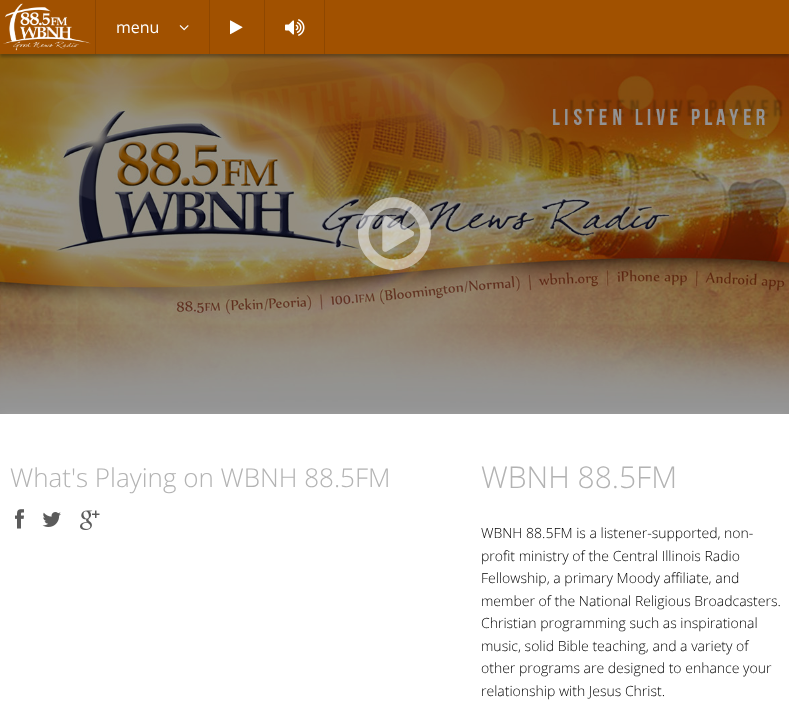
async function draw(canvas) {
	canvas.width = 789;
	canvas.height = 701;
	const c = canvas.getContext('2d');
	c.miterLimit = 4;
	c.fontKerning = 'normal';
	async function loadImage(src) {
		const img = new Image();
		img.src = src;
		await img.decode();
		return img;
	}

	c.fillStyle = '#949494';
	c.fillRect(0, 0, 789, 701);
	c.drawImage(await loadImage('img5.png'), 0, 54, 789, 349);
	c.fillStyle = '#23170566';
	c.filter = 'blur(1.5px)';
	c.beginPath();
	c.rect(0, 3, 789, 54);
	c.fill();
	c.filter = 'none';
	c.fillStyle = '#a15100';
	c.fillRect(0, 0, 789, 54);
	c.fillStyle = '#8e4700';
	c.fillRect(95, 0, 1, 54);
	c.drawImage(await loadImage('img1.png'), 3, 3, 88, 48);
	c.fillRect(209, 0, 1, 54);
	c.font = '16px Open Sans';
	c.fillStyle = '#fff';
	c.fillText('menu', 116, 33);
	c.drawImage(await loadImage('img2.png'), 179, 25, 10, 6);
	c.fillStyle = '#8e4700';
	c.fillRect(264, 0, 1, 54);
	c.drawImage(await loadImage('img3.png'), 230, 20, 13, 15);
	c.fillRect(324, 0, 1, 54);
	c.drawImage(await loadImage('img4.png'), 285, 19, 20, 17);
	c.drawImage(await loadImage('img6.png'), 358, 197, 73, 74);
	c.fillStyle = '#ffffff1a';
	c.filter = 'blur(6px)';
	c.beginPath();
	c.rect(0, 414, 789, 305);
	c.fill();
	c.filter = 'none';
	c.fillStyle = '#fff';
	c.fillRect(0, 414, 789, 287);
	c.font = '300 26px Open Sans';
	c.fillStyle = '#b3b3b3';
	c.fillText('What\'s Playing on WBNH 88.5FM', 10, 487);
	c.drawImage(await loadImage('img7.png'), 15, 509, 9, 20);
	c.drawImage(await loadImage('img8.png'), 42, 512, 19, 15);
	c.drawImage(await loadImage('img9.png'), 80, 510, 20, 20);
	c.font = '300 30px Open Sans';
	c.fillText('WBNH 88.5FM', 481, 488);
	c.font = '300 14px Open Sans';
	c.fillStyle = '#000';
	for (const [text, x, y] of [
		['WBNH 88.5FM is a listener-supported, non-', 481, 538],
		['profit ministry of the Central Illinois Radio', 481, 561],
		['Fellowship, a primary Moody affiliate, and', 481, 583],
		['member of the National Religious Broadcasters.', 481, 606],
		['Christian programming such as inspirational', 481, 628],
		['music, solid Bible teaching, and a variety of', 481, 651],
		['other programs are designed to enhance your', 481, 673],
		['relationship with Jesus Christ.', 481, 696],
	]) {
		c.fillText(text, x, y);
	}
}

draw(document.querySelector('canvas'));
